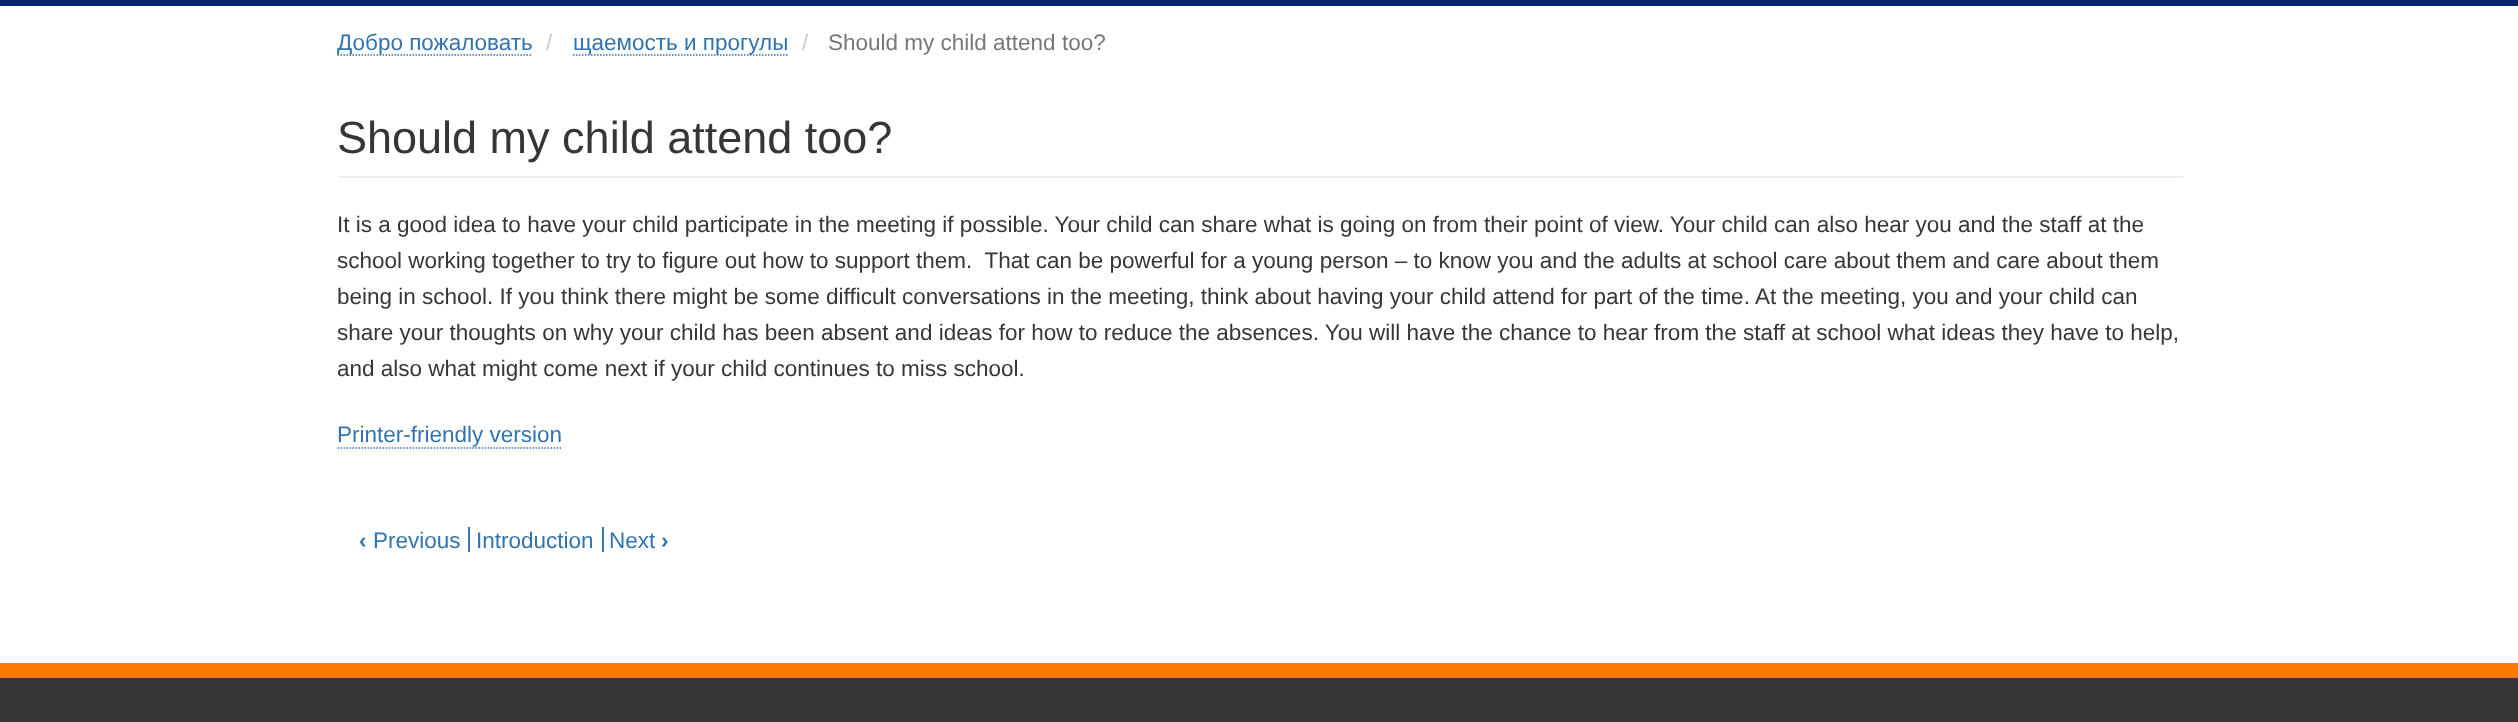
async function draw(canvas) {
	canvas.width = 2518;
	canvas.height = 722;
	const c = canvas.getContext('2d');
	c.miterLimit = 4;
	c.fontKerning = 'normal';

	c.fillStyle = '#fff';
	c.fillRect(0, 0, 2518, 722);
	c.fillStyle = '#03266e';
	c.fillRect(0, 0, 2518, 6);
	c.beginPath();
	c.moveTo(337.5, 55);
	c.lineTo(532.5, 55);
	c.strokeStyle = '#3174af';
	c.lineWidth = 1.5;
	c.setLineDash([1.5, 1.5]);
	c.stroke();
	c.font = '22.5px Liberation Sans';
	c.fillStyle = '#3174af';
	c.fillText('Добро пожаловать', 337, 50);
	c.fillStyle = '#ccc';
	c.fillText('/', 546, 50);
	c.beginPath();
	c.moveTo(573, 55);
	c.lineTo(787.5, 55);
	c.stroke();
	c.fillStyle = '#3174af';
	c.fillText('щаемость и прогулы', 573, 50);
	c.fillStyle = '#ccc';
	c.fillText('/', 802, 50);
	c.fillStyle = '#777';
	c.fillText('Should my child attend too?', 828, 50);
	c.fillStyle = '#eee';
	c.fillRect(338, 176, 1845, 2);
	c.font = '45px Liberation Sans';
	c.fillStyle = '#363636';
	c.fillText('Should my child attend too?', 337, 153);
	c.font = '22.5px Liberation Sans';
	for (const [text, x, y] of [
		['It is a good idea to have your child participate in the meeting if possible. Your child can share what is going on from their point of view. Your child can also hear you and the staff at the', 337, 232],
		['school working together to try to figure out how to support them.  That can be powerful for a young person – to know you and the adults at school care about them and care about them', 337, 268],
		['being in school. If you think there might be some difficult conversations in the meeting, think about having your child attend for part of the time. At the meeting, you and your child can', 337, 304],
		['share your thoughts on why your child has been absent and ideas for how to reduce the absences. You will have the chance to hear from the staff at school what ideas they have to help,', 337, 340],
		['and also what might come next if your child continues to miss school.', 337, 376],
	]) {
		c.fillText(text, x, y);
	}
	c.fillStyle = '#3174af';
	c.fillText('Printer-friendly version', 337, 442);
	c.beginPath();
	c.moveTo(337.5, 448);
	c.lineTo(562.5, 448);
	c.stroke();
	c.font = 'bold 22.5px Liberation Sans';
	c.fillText('‹', 359, 548);
	c.font = '22.5px Liberation Sans';
	c.fillText('Previous', 373, 548);
	c.fillStyle = '#337ab7';
	c.fillRect(468, 527, 2, 25);
	c.fillStyle = '#3174af';
	c.fillText('Introduction', 476, 548);
	c.fillStyle = '#337ab7';
	c.fillRect(602, 527, 2, 25);
	c.fillStyle = '#3174af';
	c.fillText('Next', 609, 548);
	c.font = 'bold 22.5px Liberation Sans';
	c.fillText('›', 661, 548);
	c.fillStyle = '#363636';
	c.fillRect(0, 678, 2518, 44);
	c.fillStyle = '#ff7900';
	c.fillRect(0, 663, 2518, 15);
}

draw(document.querySelector('canvas'));
